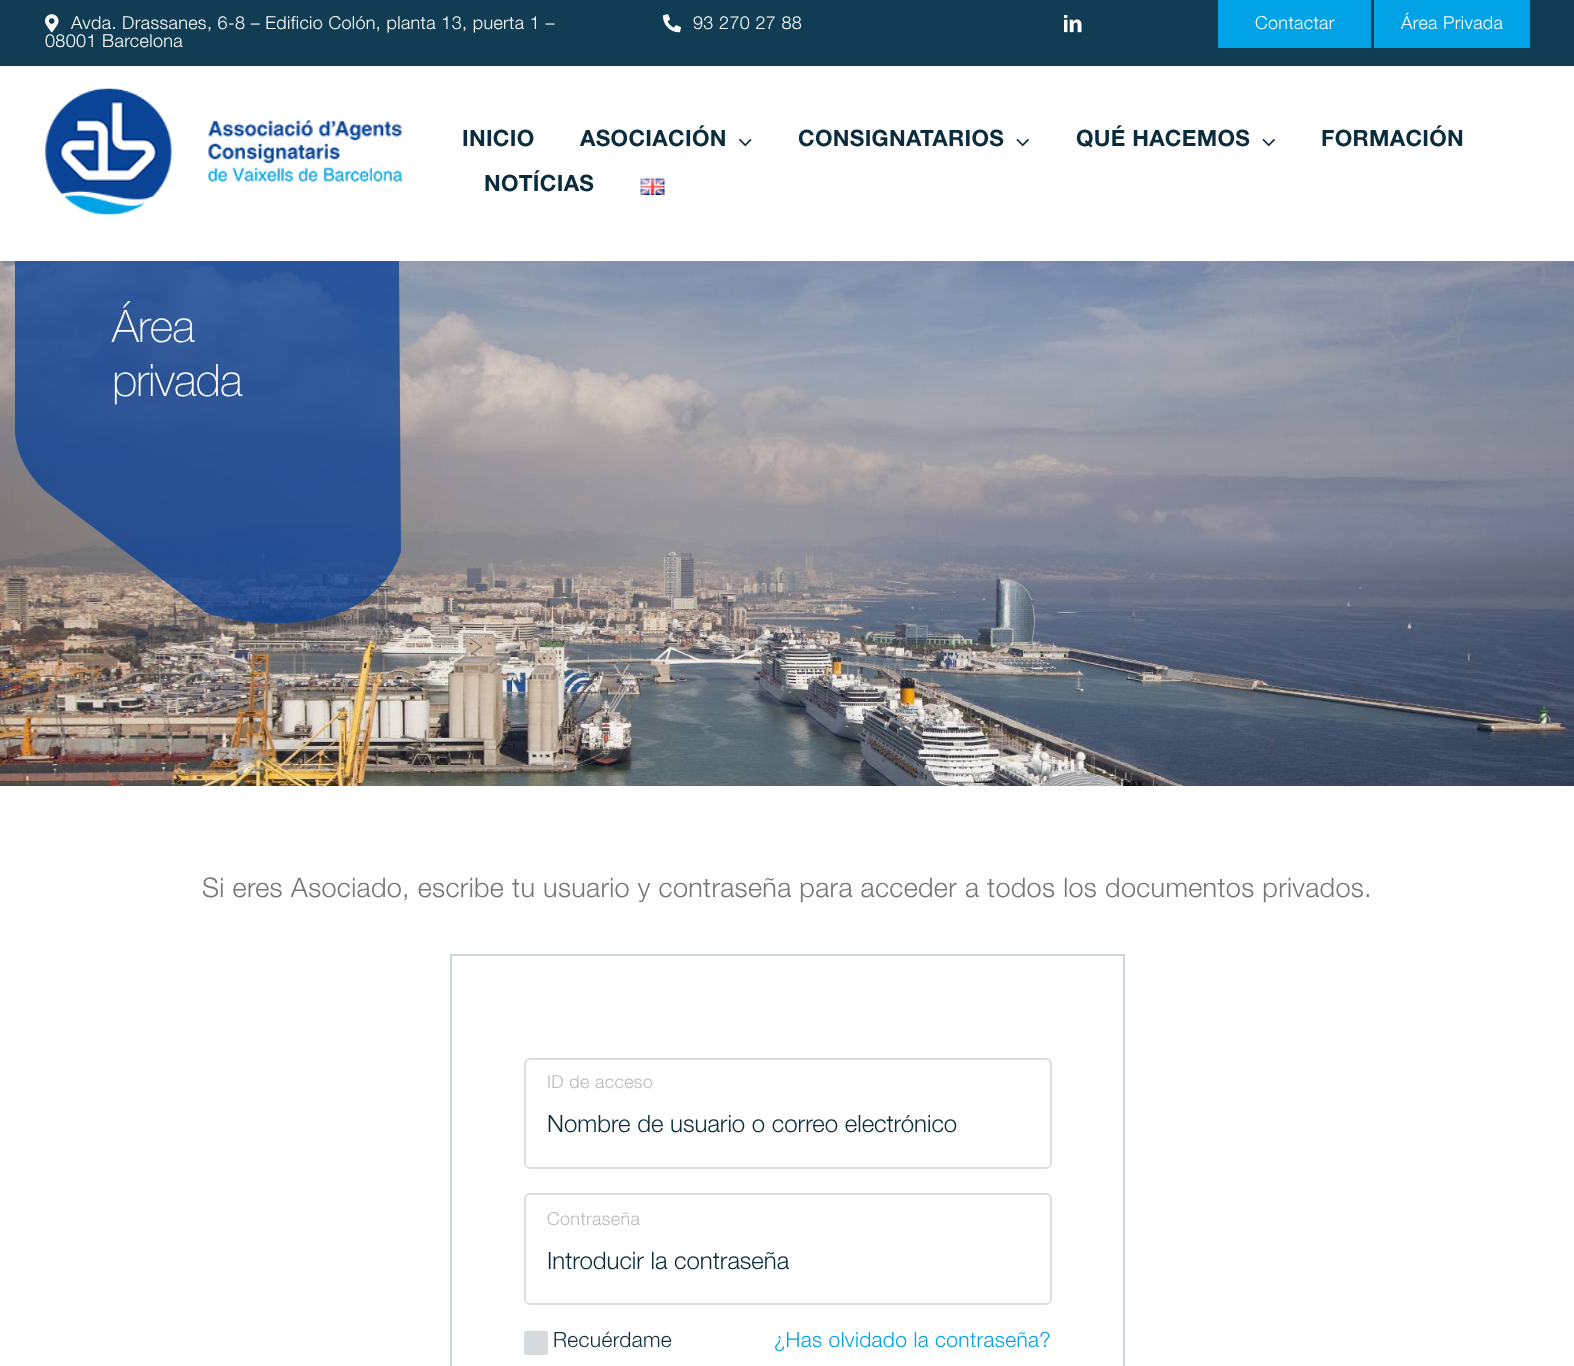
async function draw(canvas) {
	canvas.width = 1574;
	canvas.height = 1366;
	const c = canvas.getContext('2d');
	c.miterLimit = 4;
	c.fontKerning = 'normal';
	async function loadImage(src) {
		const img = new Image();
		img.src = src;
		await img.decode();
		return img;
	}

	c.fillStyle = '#fff';
	c.fillRect(0, 0, 1574, 1366);
	c.fillStyle = '#103d53';
	c.fillRect(0, 0, 1574, 66);
	c.drawImage(await loadImage('img1.png'), 45, 14, 14, 19);
	c.letterSpacing = '0.35px';
	c.font = '300 18px Helvetica Neue';
	c.fillStyle = '#fff';
	c.fillText('Avda. Drassanes, 6-8 – Edificio Colón, planta 13, puerta 1 –', 71, 29);
	c.fillText('08001 Barcelona', 45, 47);
	c.drawImage(await loadImage('img2.png'), 663, 14, 18, 19);
	c.fillText('93 270 27 88', 693, 29);
	c.drawImage(await loadImage('img3.png'), 1064, 15, 18, 18);
	c.fillStyle = '#00a3e5';
	c.fillRect(1218, 0, 153, 48);
	c.fillStyle = '#fff';
	c.fillText('Contactar', 1255, 29);
	c.fillStyle = '#00a3e5';
	c.fillRect(1374, 0, 156, 48);
	c.fillStyle = '#fff';
	c.fillText('Área Privada', 1401, 29);
	c.drawImage(await loadImage('img4.png'), 45, 88, 357, 127);
	c.letterSpacing = '0.3px';
	c.font = 'bold 22.5px Helvetica Neue';
	c.fillStyle = '#0a2c3d';
	c.fillText('INICIO', 462, 146);
	c.fillText('ASOCIACIÓN', 580, 146);
	c.drawImage(await loadImage('img5.png'), 739, 139, 13, 8);
	c.fillText('CONSIGNATARIOS', 798, 146);
	c.drawImage(await loadImage('img6.png'), 1016, 139, 13, 8);
	c.fillText('QUÉ HACEMOS', 1076, 146);
	c.drawImage(await loadImage('img6.png'), 1262, 139, 13, 8);
	c.fillText('FORMACIÓN', 1321, 146);
	c.fillText('NOTÍCIAS', 484, 191);
	c.drawImage(await loadImage('img7.png'), 640, 178, 25, 17);
	c.drawImage(await loadImage('img8.png'), 0, 261, 1574, 525);
	c.fillStyle = '#0f4496cc';
	c.beginPath();
	c.moveTo(399, 261);
	c.lineTo(15, 261);
	c.lineTo(15, 432);
	c.bezierCurveTo(17, 470, 49, 494, 49, 494);
	c.lineTo(208, 614);
	c.bezierCurveTo(232, 620, 253, 622, 272, 623);
	c.lineTo(286, 623);
	c.bezierCurveTo(384, 620, 401, 552, 401, 551);
	c.closePath();
	c.fill();
	c.letterSpacing = '-0.75px';
	c.font = '200 45px Helvetica Neue';
	c.fillStyle = '#fff';
	c.fillText('Área', 112, 342);
	c.fillText('privada', 112, 396);
	c.letterSpacing = '0.35px';
	c.font = '300 27px Helvetica Neue';
	c.fillStyle = '#767676';
	c.fillText('Si eres Asociado, escribe tu usuario y contraseña para acceder a todos los documentos privados.', 202, 897);
	c.strokeStyle = '#ced5d8';
	c.lineWidth = 2;
	c.strokeRect(451, 955, 673, 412);
	c.beginPath();
	c.roundRect(525, 1059, 526, 109, 5);
	c.strokeStyle = '#ddd';
	c.stroke();
	c.font = '300 18px Helvetica Neue';
	c.fillStyle = '#b9b9b9';
	c.fillText('ID de acceso', 547, 1088);
	c.save();
	c.beginPath();
	c.rect(548, 1115, 480, 28);
	c.clip();
	c.letterSpacing = '0px';
	c.font = '300 24px Helvetica Neue';
	c.fillStyle = '#0a2c3d';
	c.fillText('Nombre de usuario o correo electrónico', 547, 1132);
	c.restore();
	c.beginPath();
	c.roundRect(525, 1194, 526, 110, 5);
	c.stroke();
	c.fillText('Contraseña', 547, 1225);
	c.letterSpacing = '0px';
	c.font = '300 24px Helvetica Neue';
	c.fillStyle = '#0a2c3d';
	c.fillText('Introducir la contraseña', 547, 1269);
	c.fillStyle = '#d5dbde';
	c.beginPath();
	c.roundRect(525, 1332, 22, 22, 1);
	c.fill();
	c.strokeStyle = '#d5dbde';
	c.stroke();
	c.letterSpacing = '0.35px';
	c.font = '300 21px Helvetica Neue';
	c.fillStyle = '#0a2c3d';
	c.fillText('Recuérdame', 553, 1347);
	c.fillStyle = '#00a3e5';
	c.fillText('¿Has olvidado la contraseña?', 774, 1347);
}

draw(document.querySelector('canvas'));
